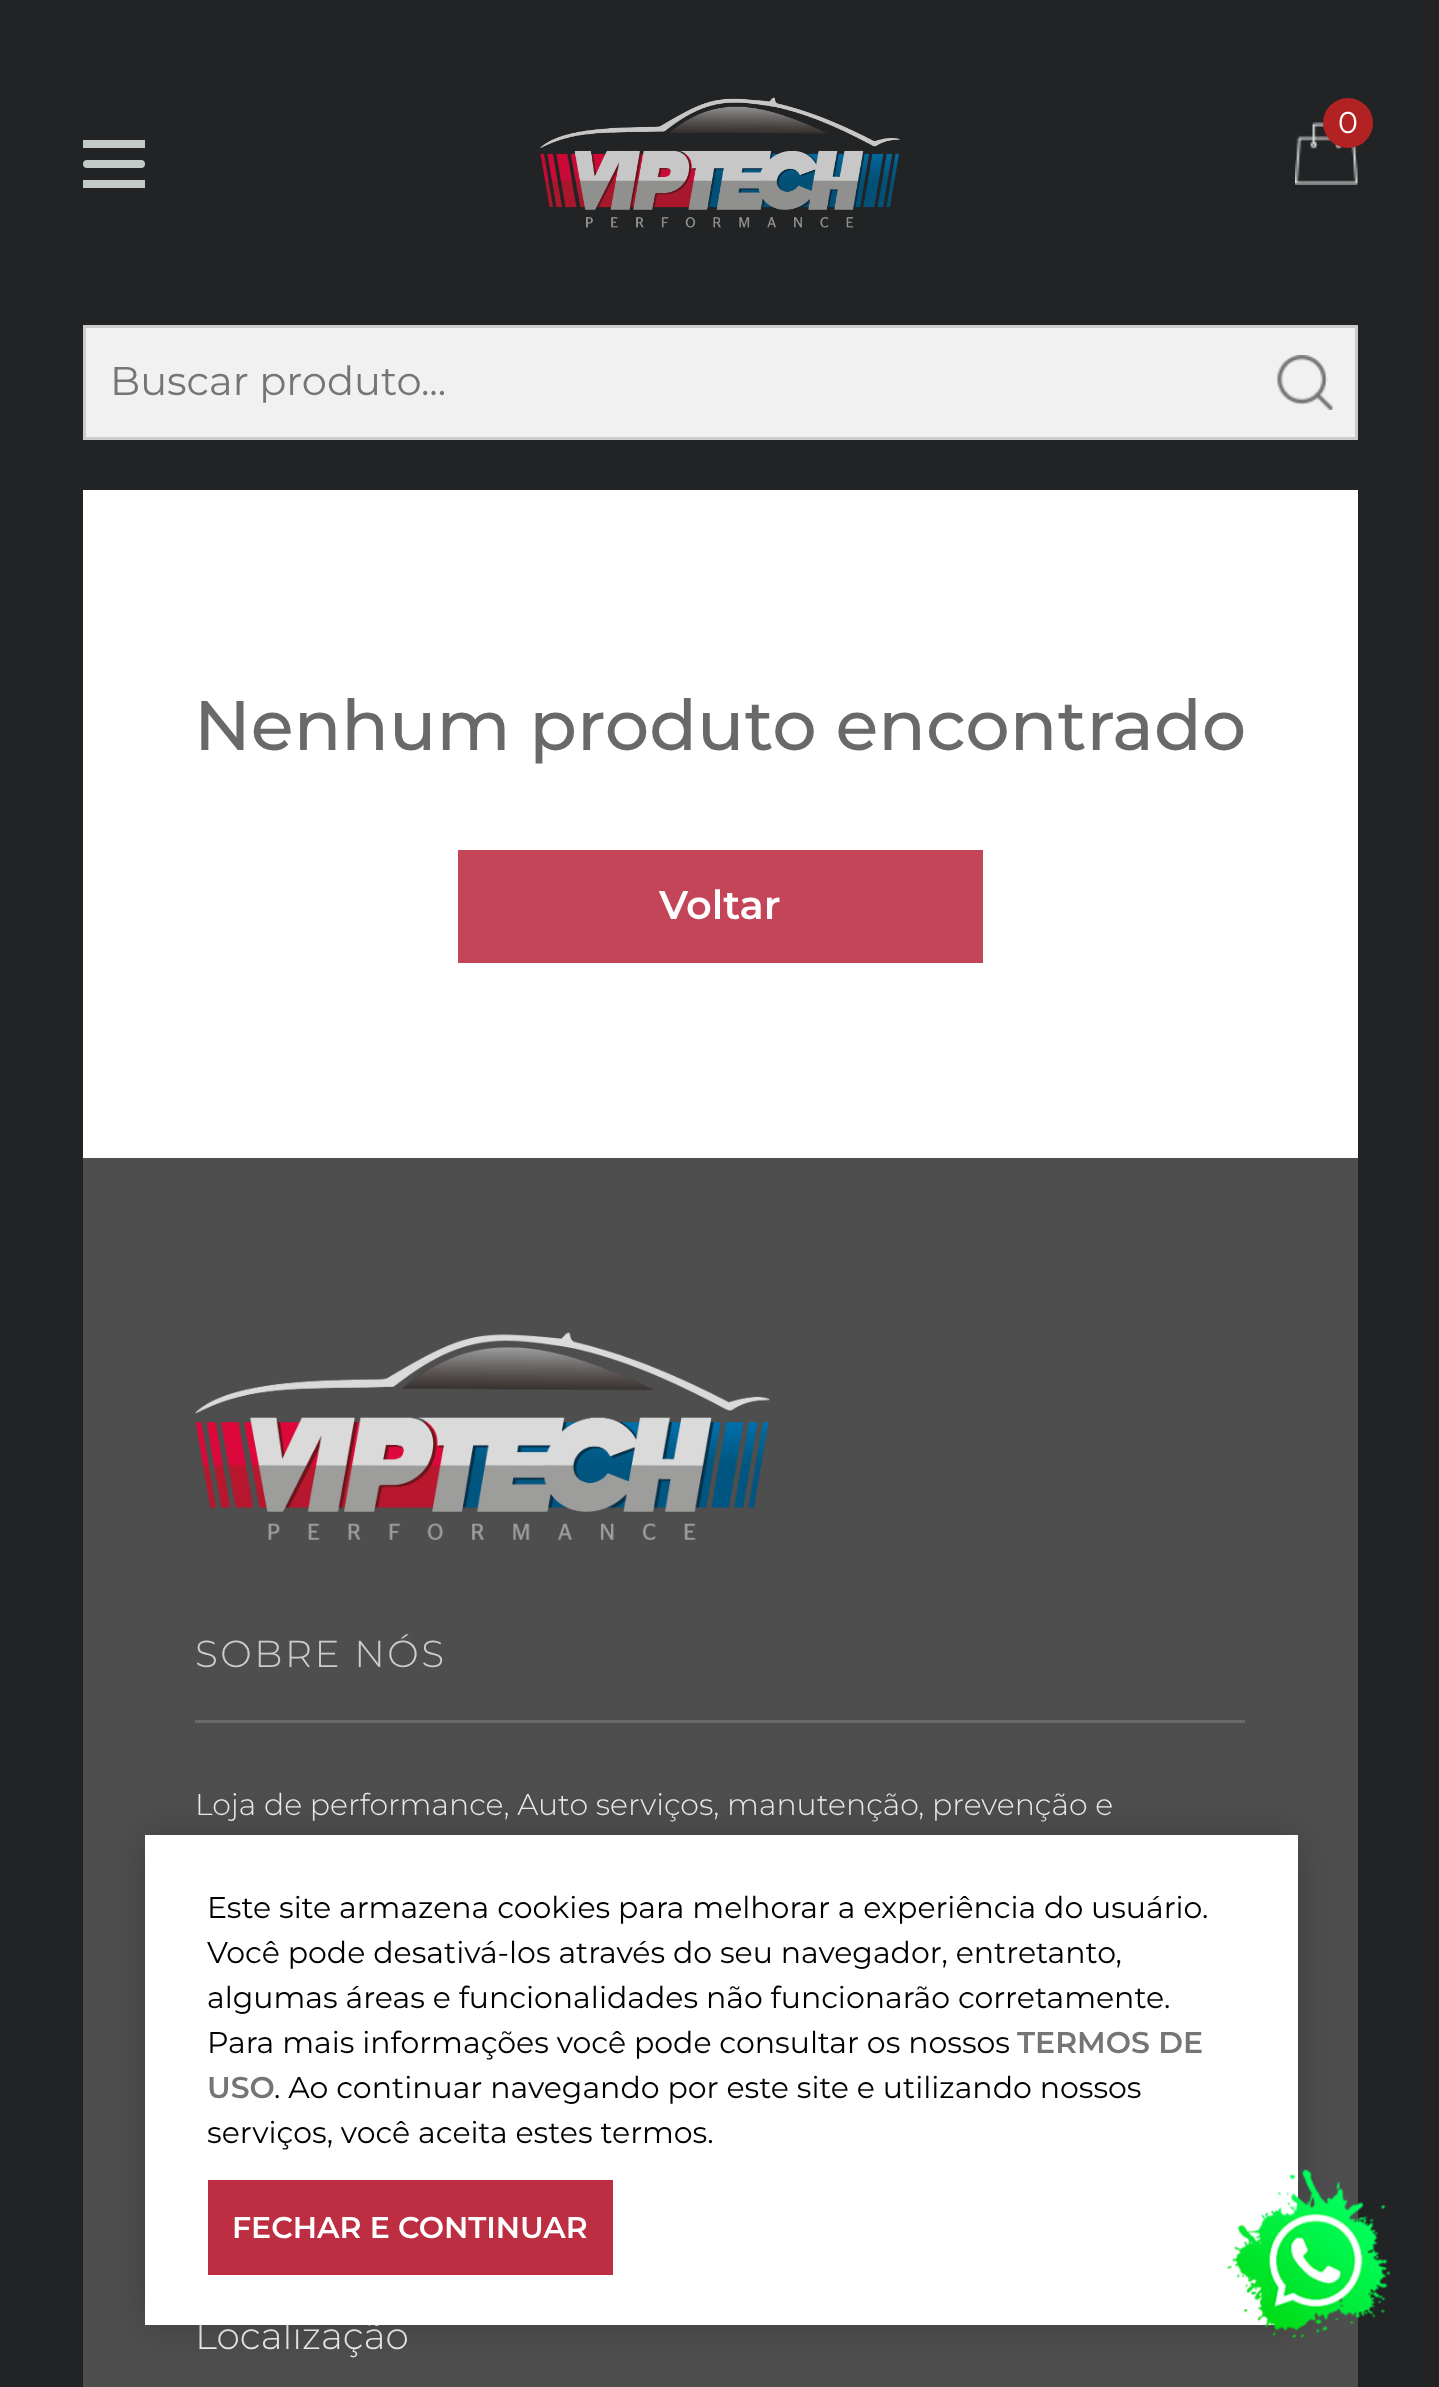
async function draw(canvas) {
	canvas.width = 1439;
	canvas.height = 2387;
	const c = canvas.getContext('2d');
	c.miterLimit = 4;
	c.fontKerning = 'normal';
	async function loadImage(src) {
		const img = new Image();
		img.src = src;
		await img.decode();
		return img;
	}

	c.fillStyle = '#212325';
	c.fillRect(0, 0, 1439, 2387);
	c.drawImage(await loadImage('img1.png'), 540, 97, 360, 131);
	c.drawImage(await loadImage('img2.png'), 1295, 122, 63, 63);
	c.fillStyle = '#b22222';
	c.beginPath();
	c.arc(1348, 123, 25, 0, 2 * Math.PI);
	c.fill();
	c.font = '30px Montserrat';
	c.fillStyle = '#fff';
	c.fillText('0', 1338, 133);
	c.fillStyle = '#c2cac7';
	c.beginPath();
	c.roundRect(83, 160, 62, 8, 4);
	c.fill();
	c.fillRect(83, 140, 62, 8);
	c.fillRect(83, 180, 62, 8);
	c.fillStyle = '#f1f1f1';
	c.beginPath();
	c.rect(84.5, 326.5, 1272, 112);
	c.fill();
	c.strokeStyle = '#ccc';
	c.lineWidth = 3;
	c.stroke();
	c.font = '40px Montserrat';
	c.fillStyle = '#757575';
	c.fillText('Buscar produto...', 110, 395);
	c.drawImage(await loadImage('img3.png'), 1277, 355, 56, 55);
	c.fillStyle = '#fff';
	c.fillRect(83, 490, 1275, 668);
	c.font = '500 70px Montserrat';
	c.fillStyle = '#696969';
	c.fillText('Nenhum produto encontrado', 194, 750);
	c.fillStyle = '#c54558';
	c.fillRect(458, 850, 525, 113);
	c.font = '600 40px Montserrat';
	c.fillStyle = '#fff';
	c.fillText('Voltar', 659, 919);
	c.fillStyle = '#4e4e4e';
	c.fillRect(83, 1158, 1275, 1229);
	c.drawImage(await loadImage('img4.png'), 195, 1332, 575, 208);
	c.fillStyle = '#696969';
	c.fillRect(195, 1720, 1050, 3);
	c.letterSpacing = '2.5px';
	c.font = '300 37.5px Montserrat';
	c.fillStyle = '#ccc';
	c.fillText('SOBRE NÓS', 195, 1667);
	c.letterSpacing = '0px';
	c.font = '300 30px Montserrat';
	c.fillStyle = '#ededed';
	c.fillText('Loja de performance, Auto serviços, manutenção, prevenção e', 195, 1815);
	c.font = '300 37.5px Montserrat';
	c.fillText('Localização', 195, 2349);
	c.fillStyle = '#00000033';
	c.filter = 'blur(19px)';
	c.beginPath();
	c.rect(145, 1835, 1153, 490);
	c.fill();
	c.filter = 'none';
	c.fillStyle = '#fff';
	c.fillRect(145, 1835, 1153, 490);
	c.drawImage(await loadImage('img5.png'), 1227, 2169, 163, 169);
	c.font = '30px Montserrat';
	c.fillStyle = '#000';
	for (const [text, x, y] of [
		['Este site armazena cookies para melhorar a experiência do usuário.', 207, 1918],
		['Você pode desativá-los através do seu navegador, entretanto,', 207, 1963],
		['algumas áreas e funcionalidades não funcionarão corretamente.', 207, 2008],
		['Para mais informações você pode consultar os nossos', 207, 2053],
	]) {
		c.fillText(text, x, y);
	}
	c.font = '600 30px Montserrat';
	c.fillStyle = '#757575';
	c.fillText('TERMOS DE', 1017, 2053);
	c.fillText('USO', 207, 2098);
	c.font = '30px Montserrat';
	c.fillStyle = '#000';
	c.fillText('. Ao continuar navegando por este site e utilizando nossos', 274, 2098);
	c.fillText('serviços, você aceita estes termos.', 207, 2143);
	c.fillStyle = '#be2e43';
	c.fillRect(208, 2180, 405, 95);
	c.font = '600 30px Montserrat';
	c.fillStyle = '#fff';
	c.fillText('FECHAR E CONTINUAR', 232, 2238);
}

draw(document.querySelector('canvas'));
